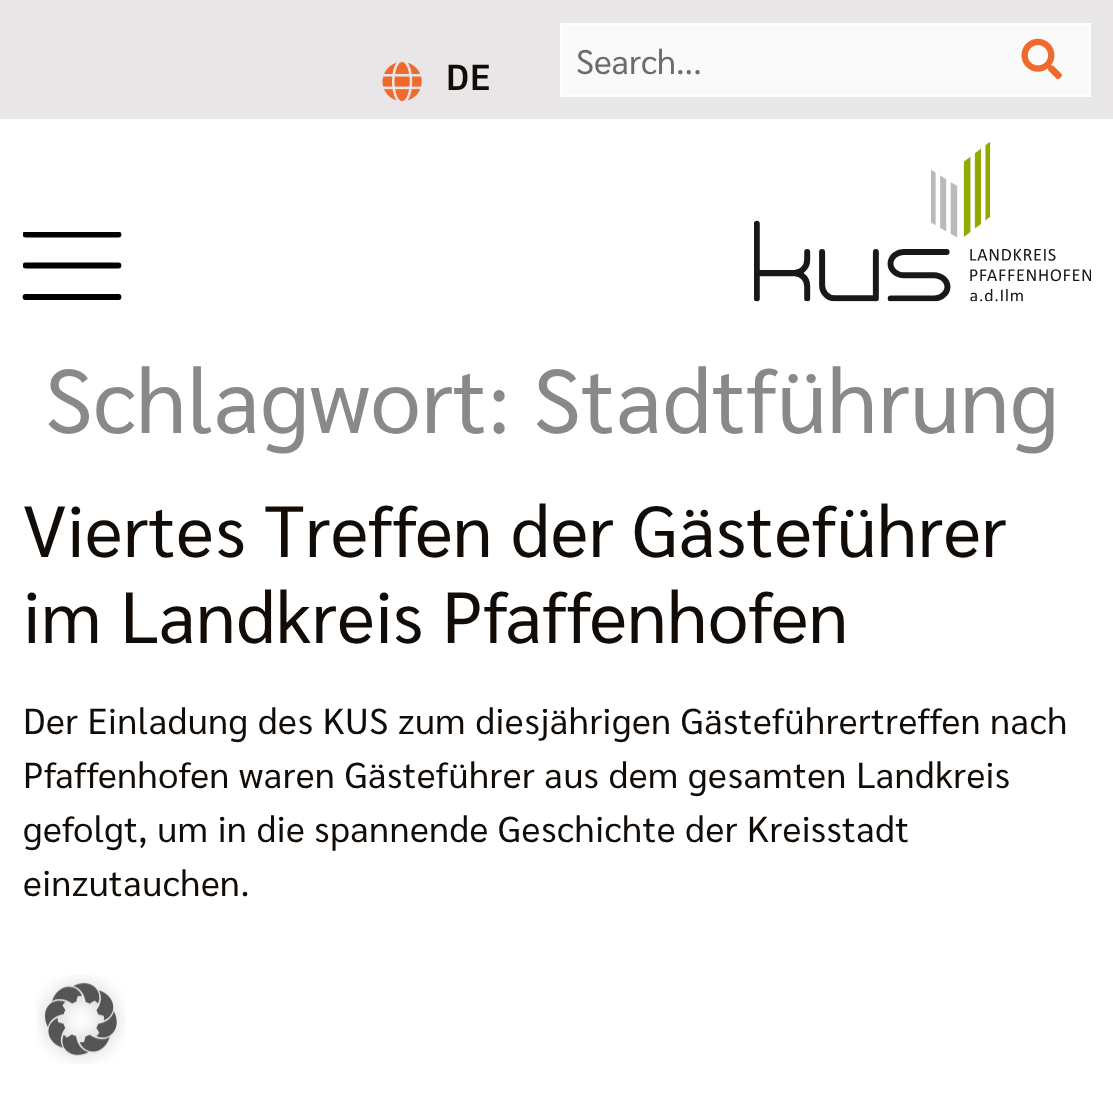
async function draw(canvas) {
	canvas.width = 1113;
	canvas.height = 1099;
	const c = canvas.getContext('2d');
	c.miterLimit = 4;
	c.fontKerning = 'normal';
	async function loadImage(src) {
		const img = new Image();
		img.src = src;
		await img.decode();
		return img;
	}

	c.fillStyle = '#fff';
	c.fillRect(0, 0, 1113, 1099);
	c.fillStyle = '#e8e6e6';
	c.fillRect(0, 0, 1113, 119);
	c.drawImage(await loadImage('img1.png'), 382, 62, 40, 40);
	c.letterSpacing = '1px';
	c.font = '600 36px Sarabun';
	c.fillStyle = '#110c08';
	c.fillText('DE', 446, 90);
	c.fillStyle = '#fafafa';
	c.beginPath();
	c.rect(561, 24, 529, 72);
	c.fill();
	c.strokeStyle = '#fff';
	c.lineWidth = 2;
	c.stroke();
	c.letterSpacing = '0px';
	c.font = '34px Sarabun';
	c.fillStyle = '#6e6b69';
	c.fillText('Search...', 576, 74);
	c.drawImage(await loadImage('img2.png'), 1021, 38, 41, 42);
	c.save();
	c.beginPath();
	c.rect(23, 232, 99, 70);
	c.clip();
	c.beginPath();
	c.moveTo(25.5, 265.5);
	c.lineTo(118.5, 265.5);
	c.strokeStyle = '#000';
	c.lineWidth = 5.8;
	c.lineCap = 'round';
	c.lineJoin = 'round';
	c.stroke();
	c.beginPath();
	c.moveTo(25.5, 234.5);
	c.lineTo(118.5, 234.5);
	c.stroke();
	c.restore();
	c.beginPath();
	c.moveTo(25.5, 297);
	c.lineTo(118.5, 297);
	c.strokeStyle = '#000';
	c.lineWidth = 5.8;
	c.lineCap = 'round';
	c.lineJoin = 'round';
	c.stroke();
	c.drawImage(await loadImage('img3.png'), 754, 142, 337, 160);
	c.letterSpacing = '0.55px';
	c.font = '90px Sarabun';
	c.fillStyle = '#898989';
	c.fillText('Schlagwort: Stadtführung', 45, 433);
	c.font = '72px Sarabun';
	c.fillStyle = '#110c08';
	c.fillText('Viertes Treffen der Gästeführer', 23, 557);
	c.fillText('im Landkreis Pfaffenhofen', 23, 643);
	c.font = '36px Sarabun';
	for (const [text, x, y] of [
		['Der Einladung des KUS zum diesjährigen Gästeführertreffen nach', 23, 734],
		['Pfaffenhofen waren Gästeführer aus dem gesamten Landkreis', 23, 788],
		['gefolgt, um in die spannende Geschichte der Kreisstadt', 23, 842],
		['einzutauchen.', 23, 896],
	]) {
		c.fillText(text, x, y);
	}
	c.drawImage(await loadImage('img4.png'), 36, 975, 90, 89);
}

draw(document.querySelector('canvas'));
